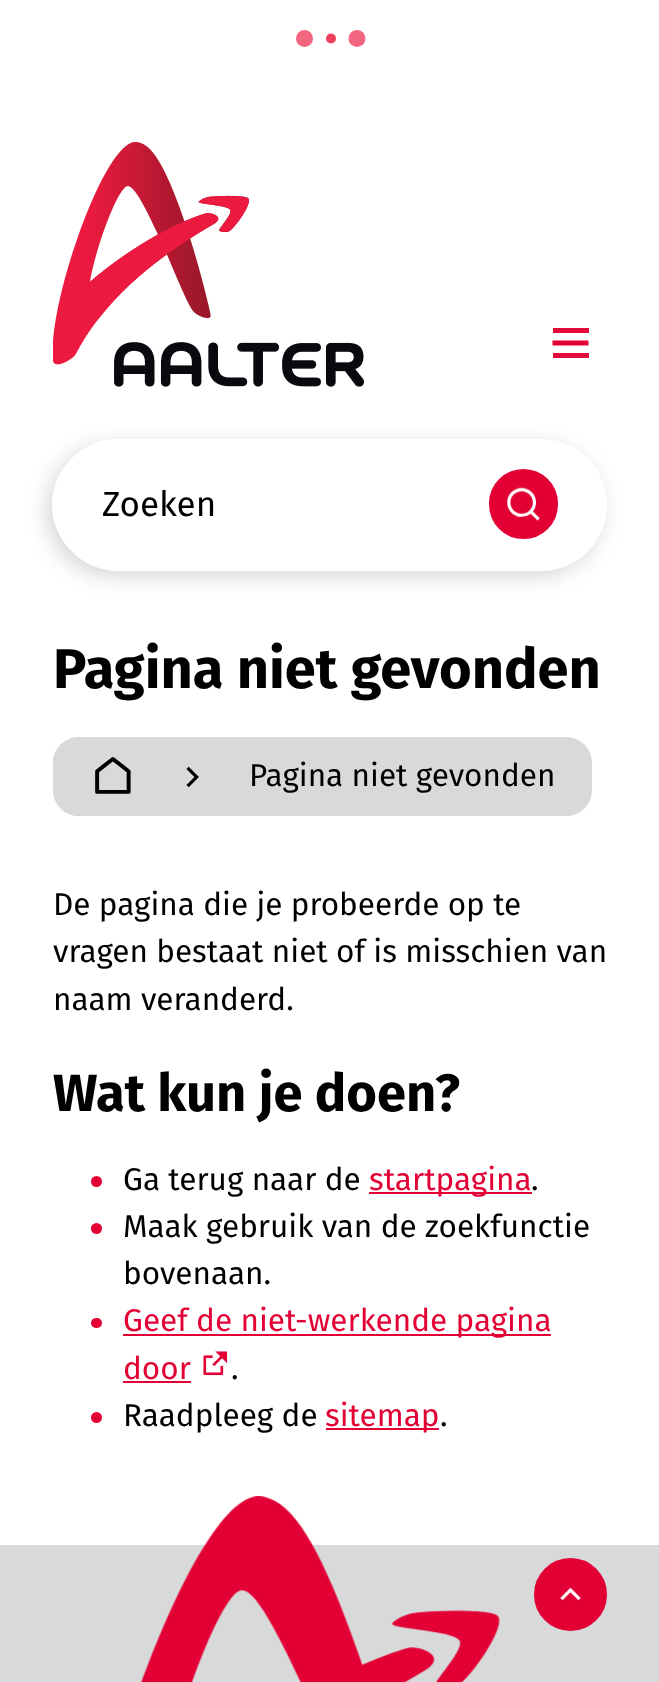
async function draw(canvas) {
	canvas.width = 659;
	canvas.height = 1682;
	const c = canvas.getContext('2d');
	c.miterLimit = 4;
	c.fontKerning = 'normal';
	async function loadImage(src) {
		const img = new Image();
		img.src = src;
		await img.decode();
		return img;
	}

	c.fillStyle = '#fff';
	c.fillRect(0, 0, 659, 1682);
	c.fillStyle = '#f26680';
	c.beginPath();
	c.arc(304.5, 38.5, 8.5, 0, 2 * Math.PI);
	c.fill();
	c.fillStyle = '#ef3f60';
	c.beginPath();
	c.arc(331, 38.5, 5, 0, 2 * Math.PI);
	c.fill();
	c.fillStyle = '#f26680';
	c.beginPath();
	c.arc(357, 38.5, 8.5, 0, 2 * Math.PI);
	c.fill();
	c.drawImage(await loadImage('img1.png'), 53, 142, 311, 245);
	c.fillStyle = '#e30a3c';
	c.fillRect(553, 328, 36, 5);
	c.beginPath();
	c.moveTo(552.5, 343);
	c.lineTo(588.5, 343);
	c.strokeStyle = '#e20034';
	c.lineWidth = 4.8;
	c.stroke();
	c.fillRect(553, 353, 36, 5);
	c.fillStyle = '#00000029';
	c.filter = 'blur(10.5px)';
	c.beginPath();
	c.roundRect(47, 445, 555, 131, 65.5);
	c.fill();
	c.filter = 'none';
	c.fillStyle = '#fff';
	c.beginPath();
	c.roundRect(53, 439, 554, 132, 66);
	c.fill();
	c.beginPath();
	c.roundRect(53, 439, 353, 132, [66, 0, 0, 66]);
	c.fill();
	c.beginPath();
	c.moveTo(118, 439);
	c.lineTo(406, 439);
	c.lineTo(406, 570);
	c.lineTo(118, 570);
	c.bezierCurveTo(82, 570, 52, 541, 52, 505);
	c.bezierCurveTo(52, 469, 82, 439, 118, 439);
	c.closePath();
	c.moveTo(118, 441);
	c.lineTo(406, 441);
	c.lineTo(406, 569);
	c.lineTo(118, 569);
	c.bezierCurveTo(83, 569, 54, 540, 54, 505);
	c.bezierCurveTo(54, 470, 83, 441, 118, 441);
	c.closePath();
	c.fill('evenodd');
	c.font = '35px Fira Sans';
	c.fillStyle = '#000';
	c.fillText('Zoeken', 102, 516);
	c.fillStyle = '#e20034';
	c.beginPath();
	c.roundRect(488, 468, 71, 72, 35.5);
	c.fill();
	c.strokeStyle = '#fff';
	c.lineWidth = 2;
	c.stroke();
	c.drawImage(await loadImage('img2.png'), 507, 487, 33, 34);
	c.font = 'bold 56px Fira Sans';
	c.fillStyle = '#000';
	c.fillText('Pagina niet gevonden', 53, 688);
	c.fillStyle = '#d8dada';
	c.beginPath();
	c.roundRect(53, 737, 159, 79, [26, 0, 0, 26]);
	c.fill();
	c.beginPath();
	c.roundRect(53, 737, 120, 79, [26, 0, 0, 26]);
	c.fill();
	c.beginPath();
	c.moveTo(53, 763);
	c.lineTo(53, 790);
	c.bezierCurveTo(53, 794, 54, 797, 55, 800);
	c.lineTo(55, 753);
	c.bezierCurveTo(54, 756, 53, 759, 53, 763);
	c.closePath();
	c.moveTo(79, 737);
	c.bezierCurveTo(75, 737, 72, 738, 69, 739);
	c.lineTo(171, 739);
	c.lineTo(171, 814);
	c.lineTo(69, 814);
	c.bezierCurveTo(72, 815, 75, 816, 79, 816);
	c.lineTo(173, 816);
	c.lineTo(173, 737);
	c.closePath();
	c.fill('evenodd');
	c.drawImage(await loadImage('img3.png'), 95, 757, 36, 37);
	c.drawImage(await loadImage('img4.png'), 186, 766, 13, 22);
	c.beginPath();
	c.roundRect(213, 738, 378, 77, [0, 25, 25, 0]);
	c.fill();
	c.strokeStyle = '#d8dada';
	c.stroke();
	c.font = '31.5px Fira Sans';
	c.fillStyle = '#000';
	for (const [text, x, y] of [
		['Pagina niet gevonden', 249, 786],
		['De pagina die je probeerde op te', 53, 915],
		['vragen bestaat niet of is misschien van', 53, 962],
		['naam veranderd.', 53, 1010],
	]) {
		c.fillText(text, x, y);
	}
	c.font = 'bold 52.5px Fira Sans';
	c.fillText('Wat kun je doen?', 53, 1111);
	c.fillStyle = '#e20034';
	c.beginPath();
	c.arc(96.5, 1181.5, 5.5, 0, 2 * Math.PI);
	c.fill();
	c.font = '31.5px Fira Sans';
	c.fillStyle = '#000';
	c.fillText('Ga terug naar de', 123, 1190);
	c.fillStyle = '#e20034';
	c.fillRect(369, 1192, 163, 2);
	c.fillText('startpagina', 369, 1190);
	c.fillStyle = '#000';
	c.fillText('.', 531, 1190);
	c.fillStyle = '#e20034';
	c.beginPath();
	c.arc(96.5, 1228.5, 5.5, 0, 2 * Math.PI);
	c.fill();
	c.fillStyle = '#000';
	c.fillText('Maak gebruik van de zoekfunctie', 123, 1237);
	c.fillText('bovenaan.', 123, 1284);
	c.fillStyle = '#e20034';
	c.beginPath();
	c.roundRect(91, 1318, 11, 10, 5);
	c.fill();
	c.fillRect(123, 1334, 428, 2);
	c.fillText('Geef de niet-werkende pagina', 123, 1331);
	c.fillText('door', 123, 1379);
	c.fillRect(123, 1381, 68, 2);
	c.drawImage(await loadImage('img5.png'), 203, 1351, 25, 25);
	c.fillStyle = '#000';
	c.fillText('.', 231, 1379);
	c.fillStyle = '#e20034';
	c.beginPath();
	c.arc(96.5, 1417.5, 5.5, 0, 2 * Math.PI);
	c.fill();
	c.fillStyle = '#000';
	c.fillText('Raadpleeg de', 123, 1426);
	c.fillStyle = '#e20034';
	c.fillRect(326, 1428, 113, 2);
	c.fillText('sitemap', 325, 1426);
	c.fillStyle = '#000';
	c.fillText('.', 440, 1426);
	c.fillStyle = '#d8dada';
	c.fillRect(0, 1545, 659, 137);
	c.drawImage(await loadImage('img6.png'), 140, 1496, 360, 186);
	c.fillStyle = '#e20034';
	c.beginPath();
	c.arc(570.5, 1594.5, 34.5, 0, 2 * Math.PI);
	c.fill();
	c.strokeStyle = '#e20034';
	c.lineWidth = 4;
	c.stroke();
	c.drawImage(await loadImage('img7.png'), 560, 1587, 22, 14);
}

draw(document.querySelector('canvas'));
